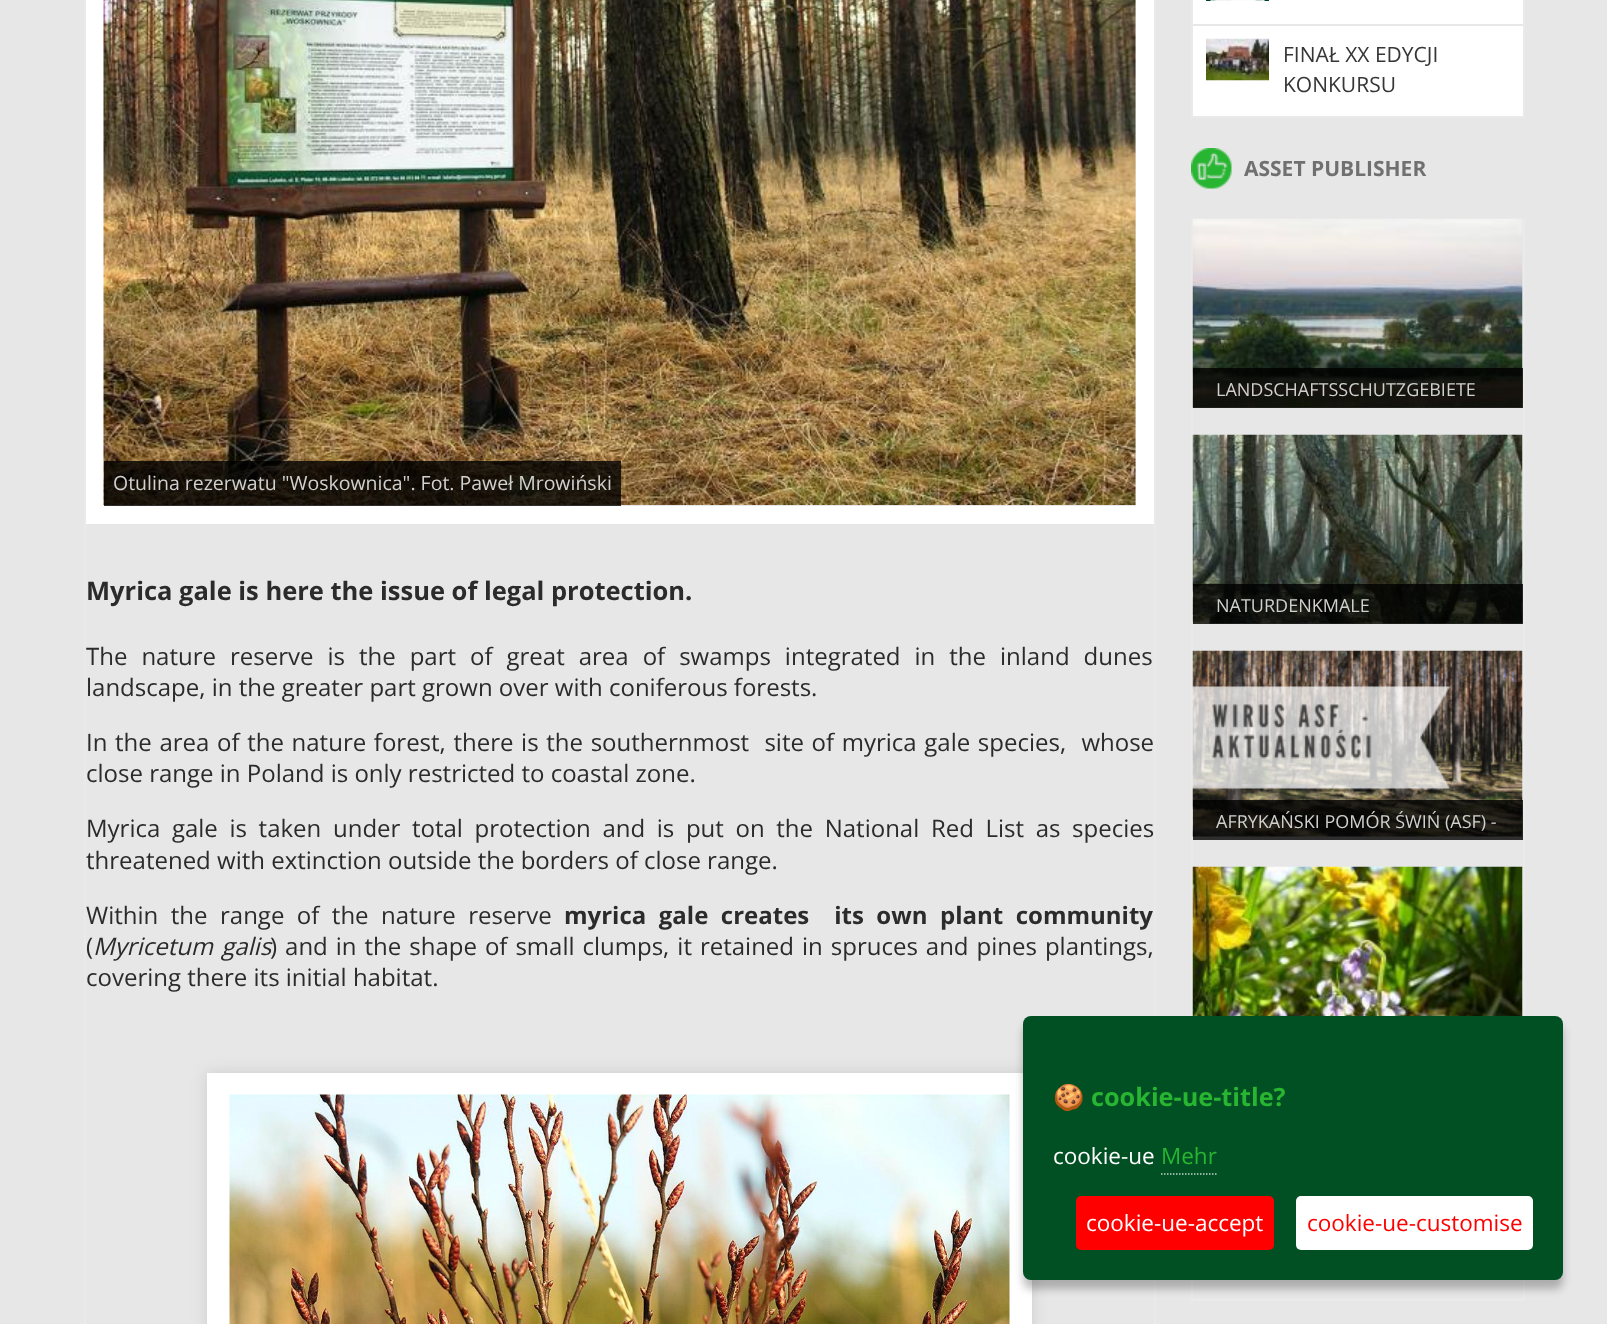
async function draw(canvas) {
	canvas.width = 1607;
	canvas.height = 1324;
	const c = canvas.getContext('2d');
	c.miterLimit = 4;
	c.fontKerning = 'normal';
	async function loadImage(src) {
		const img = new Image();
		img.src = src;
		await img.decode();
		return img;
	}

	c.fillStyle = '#e7e7e7';
	c.fillRect(0, 0, 1607, 1324);
	c.fillStyle = '#eaeaea';
	c.fillRect(1154, 0, 2, 1324);
	c.fillRect(84, 0, 2, 1324);
	c.strokeStyle = '#fff';
	c.lineWidth = 18;
	c.strokeRect(95, -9, 1050, 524);
	c.drawImage(await loadImage('img1.png'), 103, 0, 1033, 505);
	c.fillStyle = '#000000cc';
	c.fillRect(104, 461, 517, 45);
	c.font = '19.5px Open Sans';
	c.fillStyle = '#d0d0cf';
	c.fillText('Otulina rezerwatu "Woskownica". Fot. Paweł Mrowiński', 113, 490);
	c.font = 'bold 25.5px Open Sans';
	c.fillStyle = '#2b2b2b';
	c.fillText('Myrica gale is here the issue of legal protection.', 86, 600);
	c.wordSpacing = '7.75px';
	c.font = '24px Open Sans';
	c.fillText('The nature reserve is the part of great area of swamps integrated in the inland dunes', 86, 665);
	c.wordSpacing = '0px';
	c.fillText('landscape, in the greater part grown over with coniferous forests.', 86, 696);
	c.wordSpacing = '1.4px';
	c.fillText('In the area of the nature forest, there is the southernmost  site of myrica gale species,  whose', 86, 751);
	c.wordSpacing = '0px';
	c.fillText('close range in Poland is only restricted to coastal zone.', 86, 782);
	c.wordSpacing = '5.4px';
	c.fillText('Myrica gale is taken under total protection and is put on the National Red List as species', 86, 837);
	c.wordSpacing = '0px';
	c.fillText('threatened with extinction outside the borders of close range.', 86, 869);
	c.wordSpacing = '6.25px';
	c.fillText('Within the range of the nature reserve', 86, 924);
	c.font = 'bold 24px Open Sans';
	c.fillText('myrica gale creates  its own plant community', 564, 924);
	c.wordSpacing = '0px';
	c.font = '24px Open Sans';
	c.fillText('(', 86, 955);
	c.wordSpacing = '2px';
	c.font = 'italic 24px Open Sans';
	c.fillText('Myricetum galis', 93, 955);
	c.wordSpacing = '1.75px';
	c.font = '24px Open Sans';
	c.fillText(') and in the shape of small clumps, it retained in spruces and pines plantings,', 270, 955);
	c.wordSpacing = '0px';
	c.fillText('covering there its initial habitat.', 86, 986);
	c.fillStyle = '#ccc';
	c.filter = 'blur(7.5px)';
	c.beginPath();
	c.rect(207, 1073, 825, 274);
	c.fill();
	c.filter = 'none';
	c.lineWidth = 23;
	c.strokeRect(218.5, 1084.5, 802, 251);
	c.drawImage(await loadImage('img2.png'), 229, 1094, 781, 230);
	for (const [x, y, w, h, color] of [
		[1523, 0, 2, 117, '#eaeaea'],
		[1191, 116, 333, 2, '#eaeaea'],
		[1191, 0, 2, 117, '#eaeaea'],
		[1193, 0, 330, 24, '#fff'],
	]) {
		c.fillStyle = color;
		c.fillRect(x, y, w, h);
	}
	c.drawImage(await loadImage('img3.png'), 1206, 0, 63, 1);
	c.fillRect(1193, 26, 330, 90);
	c.drawImage(await loadImage('img4.png'), 1206, 38, 63, 43);
	c.font = '21px Open Sans';
	c.fillStyle = '#363636';
	c.fillText('FINAŁ XX EDYCJI', 1283, 62);
	c.fillText('KONKURSU', 1283, 92);
	c.drawImage(await loadImage('img5.png'), 1191, 148, 41, 41);
	c.font = 'bold 21px Open Sans';
	c.fillStyle = '#707070';
	c.fillText('ASSET PUBLISHER', 1244, 176);
	for (const [x, y, w, h, color] of [
		[1523, 219, 2, 1082, '#eaeaea'],
		[1191, 1299, 333, 2, '#eaeaea'],
		[1191, 219, 2, 1082, '#eaeaea'],
	]) {
		c.fillStyle = color;
		c.fillRect(x, y, w, h);
	}
	c.drawImage(await loadImage('img6.png'), 1192, 218, 331, 190);
	c.fillStyle = '#000000cc';
	c.fillRect(1193, 368, 330, 40);
	c.font = '18px Open Sans';
	c.fillStyle = '#d0d0cf';
	c.fillText('LANDSCHAFTSSCHUTZGEBIETE', 1216, 396);
	c.drawImage(await loadImage('img7.png'), 1192, 434, 331, 190);
	c.fillStyle = '#000000cc';
	c.fillRect(1193, 584, 330, 40);
	c.fillStyle = '#d0d0cf';
	c.fillText('NATURDENKMALE', 1216, 612);
	c.drawImage(await loadImage('img8.png'), 1192, 650, 331, 187);
	c.fillStyle = '#000000cc';
	c.fillRect(1193, 800, 330, 40);
	c.fillStyle = '#d0d0cf';
	c.fillText('AFRYKAŃSKI POMÓR ŚWIŃ (ASF) -', 1216, 828);
	c.drawImage(await loadImage('img9.png'), 1192, 866, 331, 150);
	c.fillStyle = '#00000040';
	c.filter = 'blur(4.5px)';
	c.beginPath();
	c.roundRect(1023, 1025, 540, 264, 8);
	c.fill();
	c.filter = 'none';
	c.fillStyle = '#005023';
	c.beginPath();
	c.roundRect(1023, 1016, 540, 264, 8);
	c.fill();
	c.font = 'bold 25.25px Noto Color Emoji';
	c.fillStyle = '#28b532';
	c.fillText('🍪', 1053, 1106);
	c.font = 'bold 25.25px Open Sans';
	c.fillText('cookie-ue-title?', 1091, 1106);
	c.font = '22.5px Open Sans';
	c.fillStyle = '#fff';
	c.fillText('cookie-ue', 1053, 1164);
	c.fillStyle = '#28b532';
	c.fillText('Mehr', 1161, 1164);
	c.beginPath();
	c.moveTo(1161, 1174);
	c.lineTo(1216.5, 1174);
	c.strokeStyle = '#bfd3c8';
	c.lineWidth = 1.5;
	c.setLineDash([1.5, 1.5]);
	c.stroke();
	c.fillStyle = '#f00';
	c.beginPath();
	c.roundRect(1076, 1196, 198, 54, 5);
	c.fill();
	c.fillStyle = '#fff';
	c.fillText('cookie-ue-accept', 1086, 1231);
	c.beginPath();
	c.roundRect(1296, 1196, 237, 54, 5);
	c.fill();
	c.fillStyle = '#f00';
	c.fillText('cookie-ue-customise', 1307, 1231);
}

draw(document.querySelector('canvas'));
